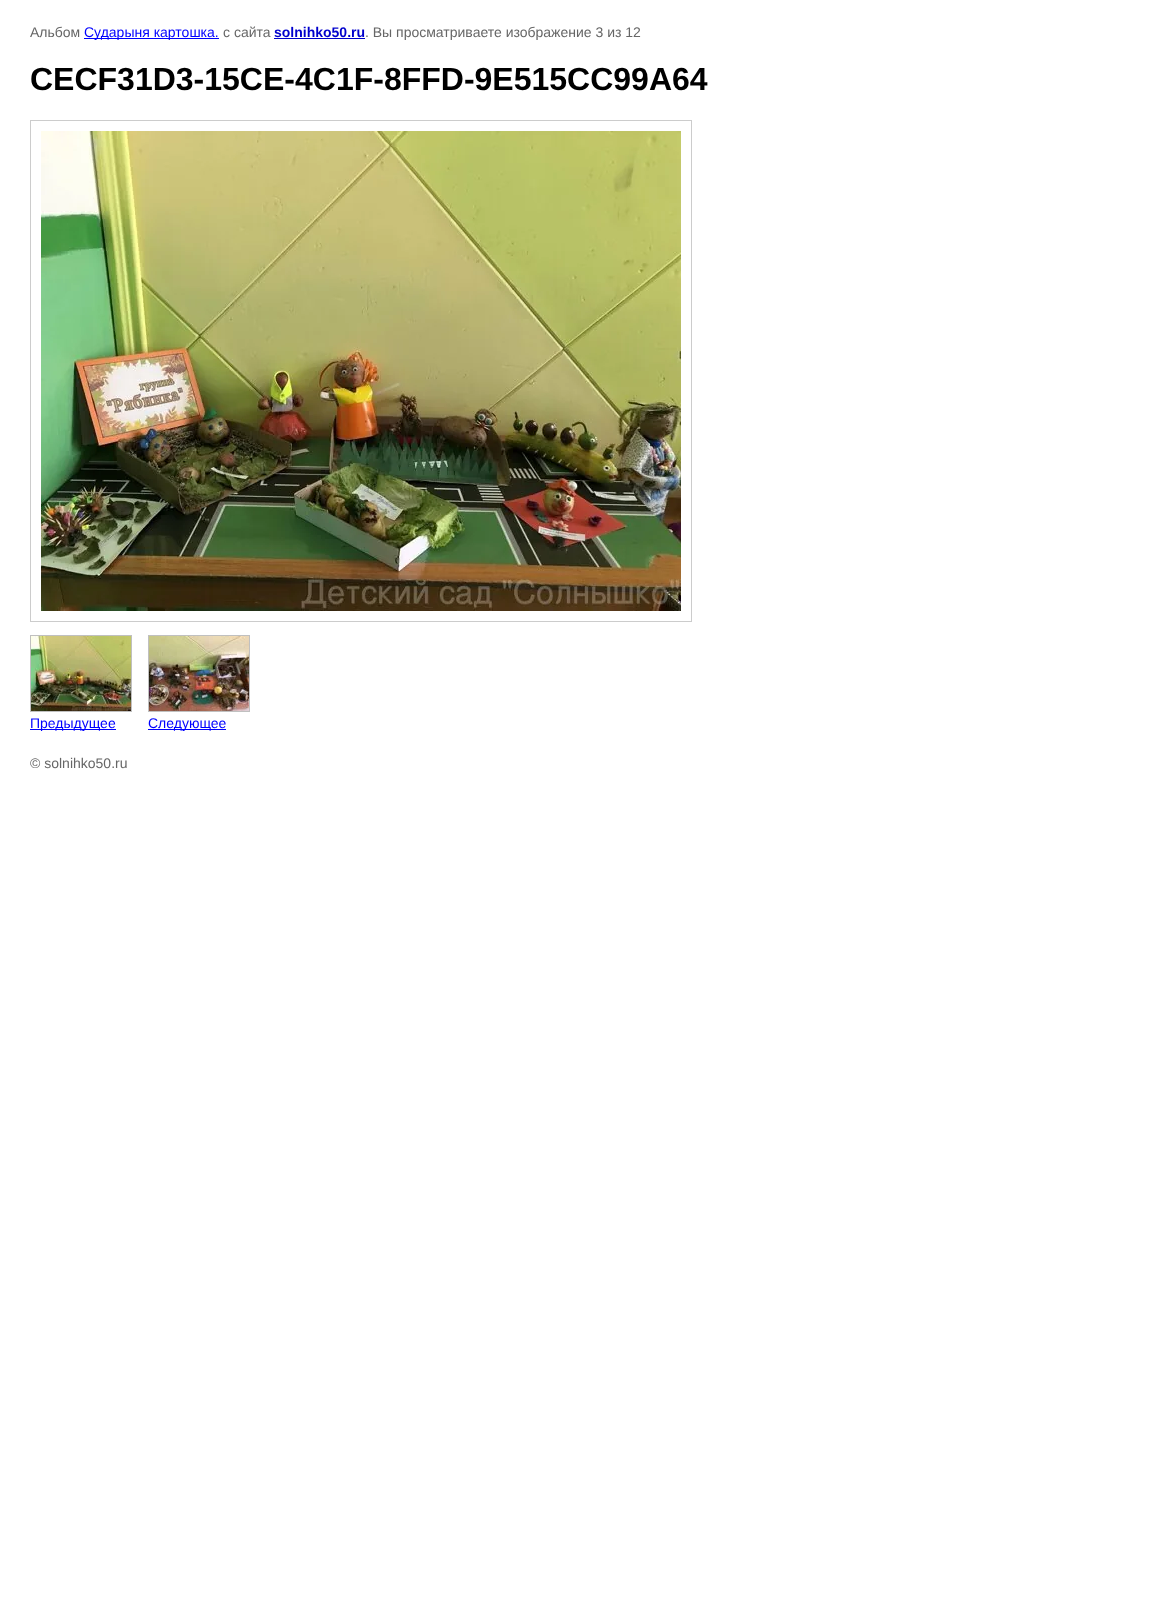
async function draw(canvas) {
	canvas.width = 1167;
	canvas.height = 1601;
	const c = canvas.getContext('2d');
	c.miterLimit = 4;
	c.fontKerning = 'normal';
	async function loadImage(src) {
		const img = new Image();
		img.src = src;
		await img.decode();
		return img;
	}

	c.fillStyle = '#fff';
	c.fillRect(0, 0, 1167, 1601);
	c.font = '14px Liberation Sans';
	c.fillStyle = '#666';
	c.fillText('Альбом', 30, 37);
	c.fillStyle = '#00f';
	c.fillRect(84, 38, 135, 1);
	c.fillText('Сударыня картошка.', 84, 37);
	c.fillStyle = '#666';
	c.fillText('с сайта', 223, 37);
	c.font = 'bold 14px Liberation Sans';
	c.fillStyle = '#00c';
	c.fillText('solnihko50.ru', 274, 37);
	c.fillRect(274, 38, 91, 1);
	c.font = '14px Liberation Sans';
	c.fillStyle = '#666';
	c.fillText('. Вы просматриваете изображение 3 из 12', 365, 37);
	c.font = 'bold 32px Liberation Sans';
	c.fillStyle = '#000';
	c.fillText('CECF31D3-15CE-4C1F-8FFD-9E515CC99A64', 30, 90);
	c.strokeStyle = '#ccc';
	c.strokeRect(30.5, 120.5, 661, 501);
	c.drawImage(await loadImage('img1.png'), 41, 131, 640, 480);
	c.strokeStyle = '#c0c0c0';
	c.strokeRect(30.5, 635.5, 101, 76);
	c.drawImage(await loadImage('img2.png'), 31, 636, 100, 75);
	c.fillStyle = '#00f';
	c.fillRect(30, 729, 86, 1);
	c.font = '14px Liberation Sans';
	c.fillText('Предыдущее', 30, 728);
	c.strokeRect(148.5, 635.5, 101, 76);
	c.drawImage(await loadImage('img3.png'), 149, 636, 100, 75);
	c.fillRect(148, 729, 78, 1);
	c.fillText('Следующее', 148, 728);
	c.fillStyle = '#666';
	c.fillText('© solnihko50.ru', 30, 768);
}

draw(document.querySelector('canvas'));
